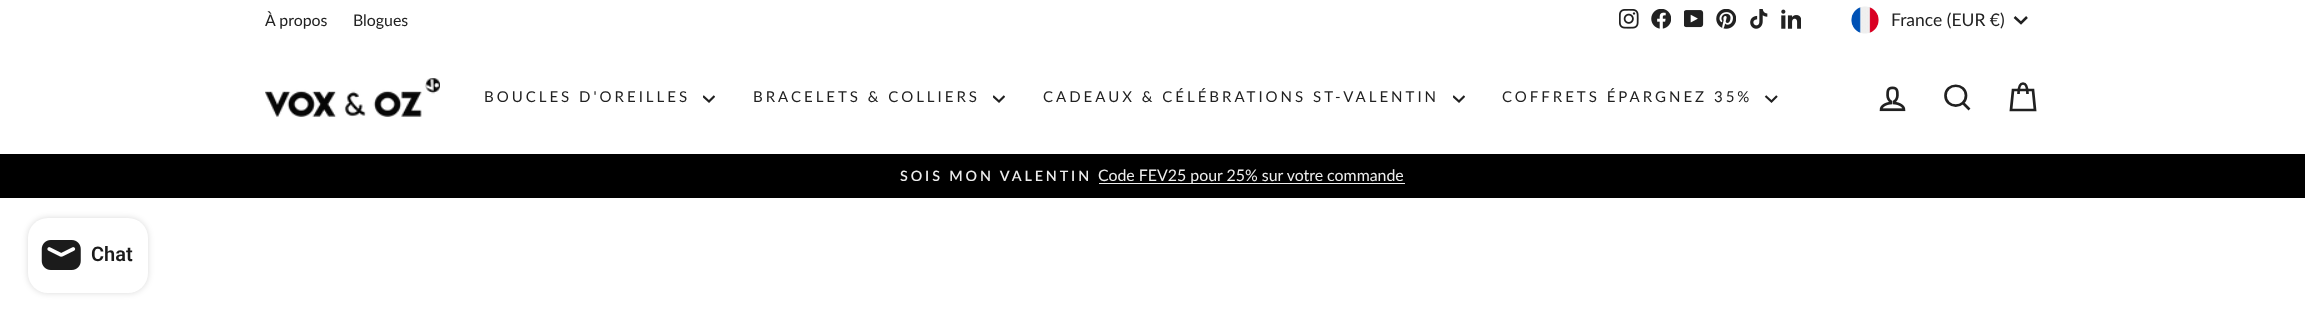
async function draw(canvas) {
	canvas.width = 2305;
	canvas.height = 318;
	const c = canvas.getContext('2d');
	c.miterLimit = 4;
	c.fontKerning = 'normal';
	async function loadImage(src) {
		const img = new Image();
		img.src = src;
		await img.decode();
		return img;
	}

	c.fillStyle = '#fff';
	c.fillRect(0, 0, 2305, 318);
	c.font = '15.9px Lato';
	c.fillStyle = '#212121';
	c.fillText('À propos', 265, 26);
	c.fillText('Blogues', 353, 26);
	c.drawImage(await loadImage('img1.png'), 1619, 9, 20, 20);
	c.drawImage(await loadImage('img2.png'), 1651, 9, 20, 20);
	c.drawImage(await loadImage('img3.png'), 1684, 10, 20, 18);
	c.drawImage(await loadImage('img4.png'), 1716, 9, 20, 20);
	c.drawImage(await loadImage('img5.png'), 1750, 9, 18, 20);
	c.drawImage(await loadImage('img6.png'), 1781, 9, 20, 20);
	c.drawImage(await loadImage('img7.png'), 1851, 6, 28, 28);
	c.font = '17.5px Lato';
	c.fillText('France (EUR €)', 1891, 26);
	c.beginPath();
	c.moveTo(2014.5, 17);
	c.lineTo(2021, 23);
	c.lineTo(2027, 17);
	c.strokeStyle = '#212121';
	c.lineWidth = 2.5;
	c.stroke();
	c.fillStyle = '#000';
	c.fillRect(0, 154, 2305, 44);
	c.fillStyle = '#00000033';
	c.filter = 'blur(0.5px)';
	c.beginPath();
	c.rect(0, 40, 2305, 114);
	c.fill();
	c.filter = 'none';
	c.fillStyle = '#fff';
	c.fillRect(0, 40, 2305, 114);
	c.drawImage(await loadImage('img8.png'), 265, 78, 175, 39);
	c.letterSpacing = '3px';
	c.font = '15px Lato';
	c.fillStyle = '#212121';
	c.fillText('BOUCLES D\'OREILLES', 484, 102);
	c.save();
	c.beginPath();
	c.rect(703, 93, 12, 12);
	c.clip();
	c.beginPath();
	c.moveTo(703, 96);
	c.lineTo(709, 101.5);
	c.lineTo(714.5, 96);
	c.lineWidth = 2.2;
	c.stroke();
	c.restore();
	c.fillText('BRACELETS & COLLIERS', 753, 102);
	c.save();
	c.beginPath();
	c.rect(993, 93, 12, 12);
	c.clip();
	c.beginPath();
	c.moveTo(993, 96);
	c.lineTo(999, 101.5);
	c.lineTo(1004.5, 96);
	c.lineWidth = 2.2;
	c.stroke();
	c.restore();
	c.fillText('CADEAUX & CÉLÉBRATIONS ST-VALENTIN', 1043, 102);
	c.save();
	c.beginPath();
	c.rect(1453, 93, 12, 12);
	c.clip();
	c.beginPath();
	c.moveTo(1453, 96);
	c.lineTo(1459, 101.5);
	c.lineTo(1464.5, 96);
	c.lineWidth = 2.2;
	c.stroke();
	c.restore();
	c.fillText('COFFRETS ÉPARGNEZ 35%', 1502, 102);
	c.beginPath();
	c.moveTo(1765.5, 96);
	c.lineTo(1771.5, 101.5);
	c.lineTo(1777, 96);
	c.lineWidth = 2.2;
	c.stroke();
	c.drawImage(await loadImage('img9.png'), 1879, 86, 27, 26);
	c.beginPath();
	c.moveTo(1966, 95.5);
	c.bezierCurveTo(1966, 109, 1945.5, 109, 1945.5, 95.5);
	c.bezierCurveTo(1945.5, 82.5, 1966, 82.5, 1966, 95.5);
	c.closePath();
	c.moveTo(1969.5, 109.5);
	c.lineTo(1963, 103);
	c.lineWidth = 2.7;
	c.stroke();
	c.beginPath();
	c.moveTo(2018.5, 94);
	c.bezierCurveTo(2018.5, 85.5, 2020.5, 83.5, 2023, 83.5);
	c.bezierCurveTo(2025.5, 83.5, 2027.5, 85.5, 2027.5, 94);
	c.moveTo(2013, 90);
	c.lineTo(2033, 90);
	c.lineTo(2035, 110);
	c.lineTo(2011, 110);
	c.closePath();
	c.stroke();
	c.letterSpacing = '2.9px';
	c.font = '600 14.3px Lato';
	c.fillStyle = '#ededed';
	c.fillText('SOIS MON VALENTIN', 900, 181);
	c.fillRect(1099, 183, 306, 1);
	c.letterSpacing = '0px';
	c.font = '15.9px Lato';
	c.fillText('Code FEV25 pour 25% sur votre commande', 1098, 181);
	c.fillStyle = '#00000026';
	c.filter = 'blur(3px)';
	c.beginPath();
	c.roundRect(28, 218, 120, 75, 20);
	c.fill();
	c.filter = 'none';
	c.fillStyle = '#fff';
	c.beginPath();
	c.roundRect(28, 218, 120, 75, 20);
	c.fill();
	c.drawImage(await loadImage('img10.png'), 41, 240, 40, 30);
	c.font = '600 20px Roboto';
	c.fillStyle = '#1b1b1b';
	c.fillText('Chat', 91, 261);
}

draw(document.querySelector('canvas'));
